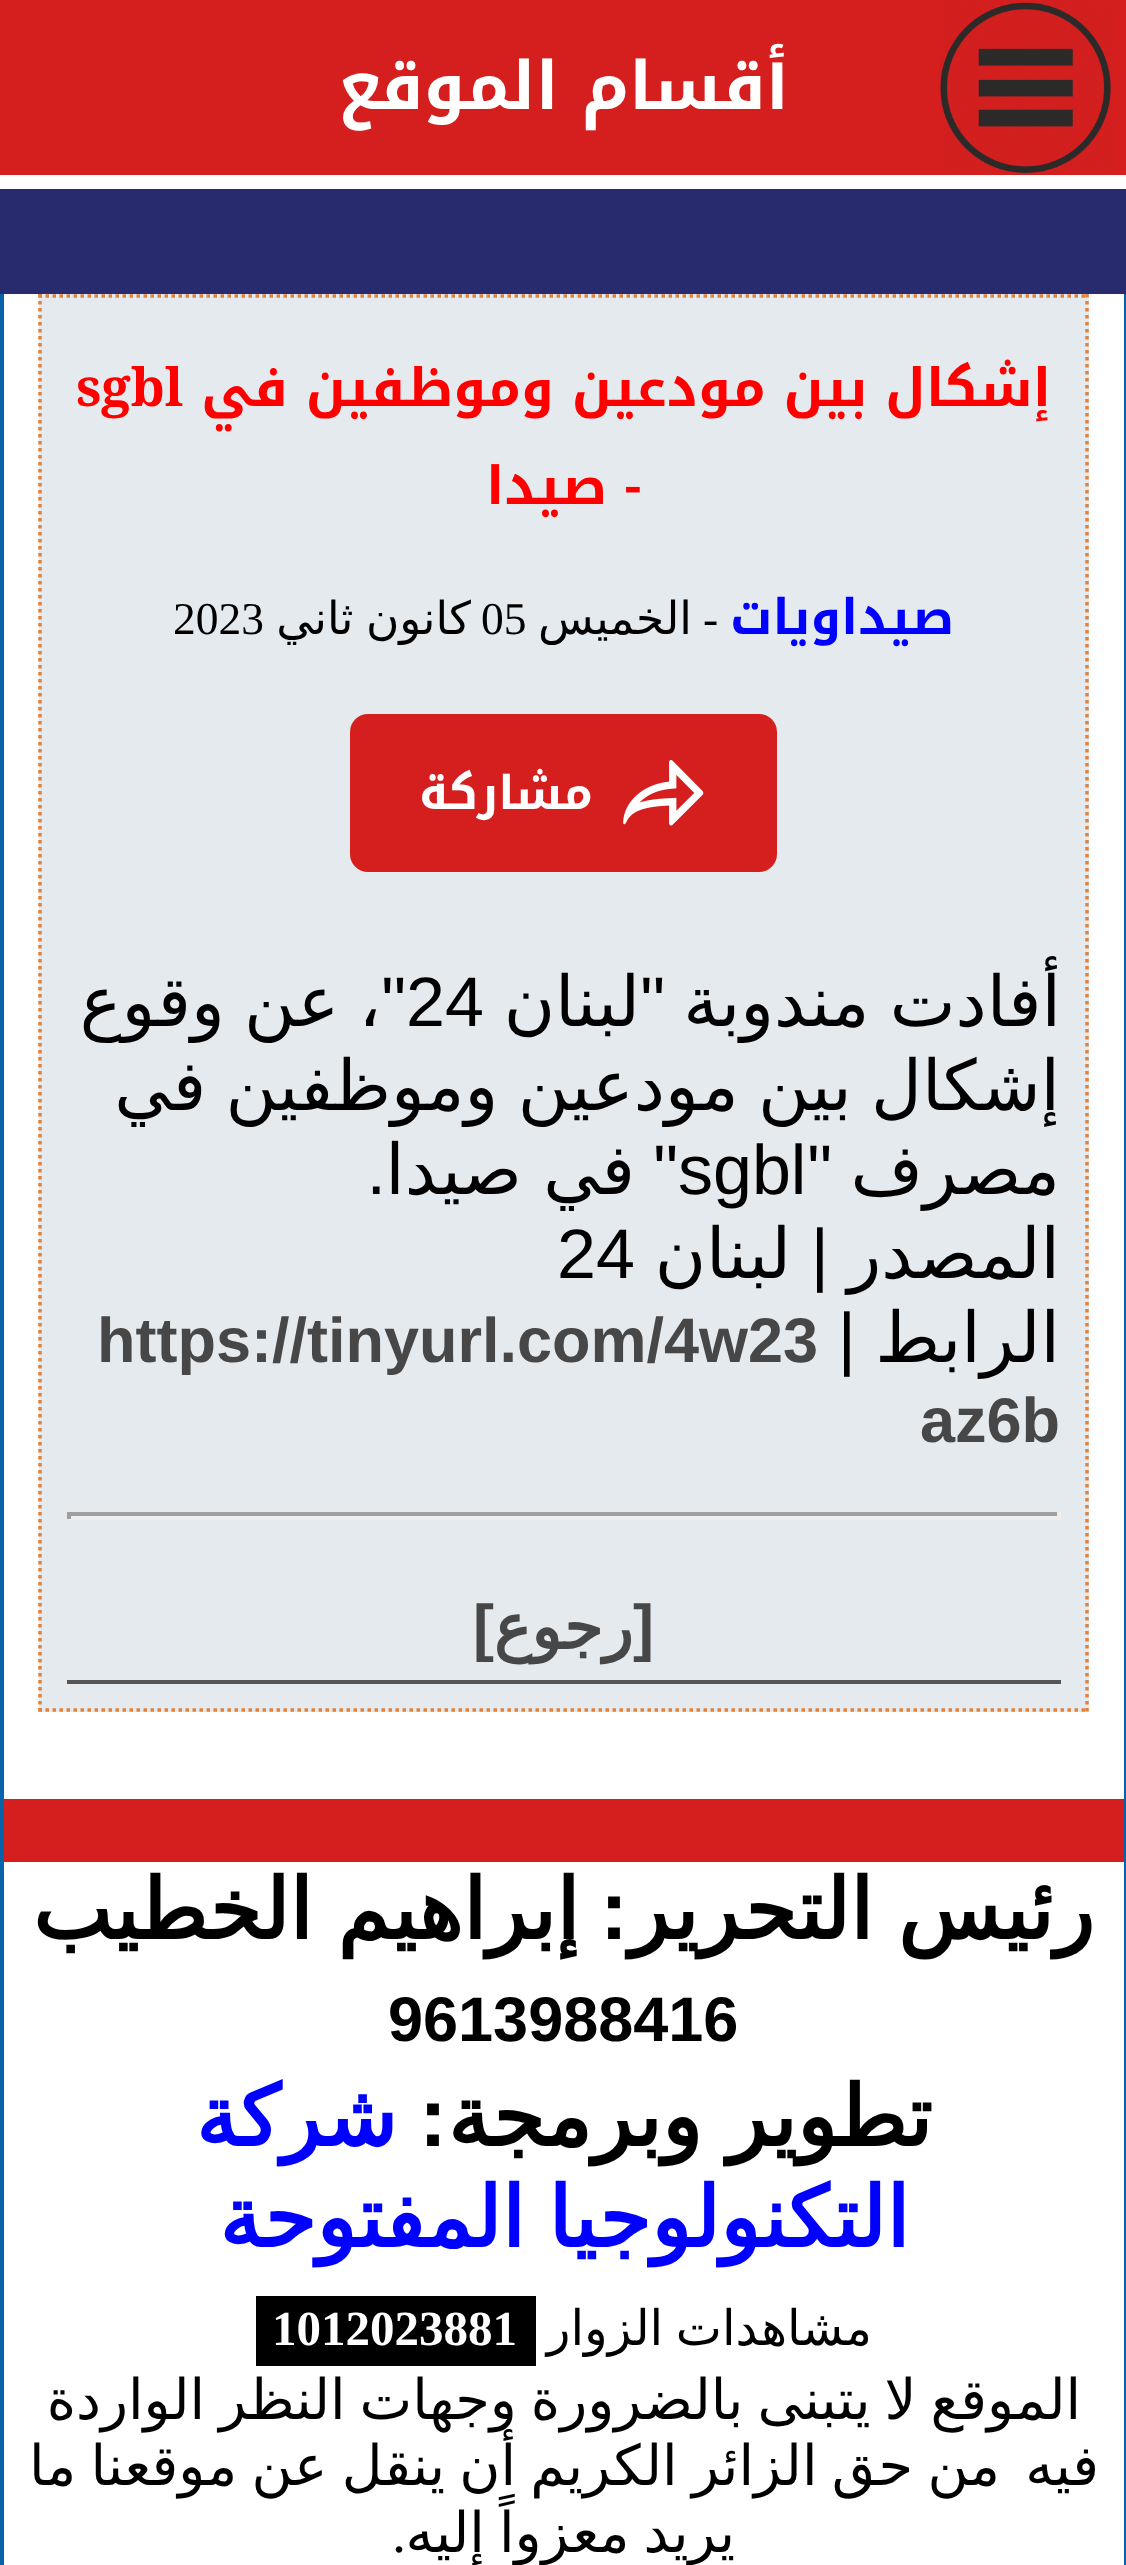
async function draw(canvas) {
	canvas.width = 1126;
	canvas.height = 2565;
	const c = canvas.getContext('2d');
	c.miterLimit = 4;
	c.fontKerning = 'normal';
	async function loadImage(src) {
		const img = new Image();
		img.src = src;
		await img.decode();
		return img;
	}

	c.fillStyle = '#fff';
	c.fillRect(0, 0, 1126, 2565);
	c.fillStyle = '#d51f1f';
	c.fillRect(0, 0, 1126, 175);
	c.drawImage(await loadImage('img1.png'), 940, 2, 172, 172);
	c.direction = 'rtl';
	c.font = 'bold 66.5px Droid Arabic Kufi';
	c.fillStyle = '#fff';
	c.fillText('أقسام الموقع', 789, 109);
	for (const [x, y, w, h, color] of [
		[0, 189, 1126, 105, '#282c6f'],
		[1124, 294, 2, 2271, '#0863aa'],
		[0, 294, 4, 2271, '#0863aa'],
		[39, 294, 1050, 1418, '#e5eaee'],
	]) {
		c.fillStyle = color;
		c.fillRect(x, y, w, h);
	}
	c.beginPath();
	c.moveTo(38.5, 296);
	c.lineTo(1088.5, 296);
	c.strokeStyle = '#e48139';
	c.lineWidth = 3.5;
	c.setLineDash([3.5, 3.5]);
	c.stroke();
	c.beginPath();
	c.moveTo(1087, 294);
	c.lineTo(1087, 1711.5);
	c.stroke();
	c.beginPath();
	c.moveTo(38.5, 1710);
	c.lineTo(1088.5, 1710);
	c.stroke();
	c.beginPath();
	c.moveTo(40, 294);
	c.lineTo(40, 1711.5);
	c.stroke();
	c.font = 'bold 52.5px Droid Arabic Kufi';
	c.fillStyle = '#f00';
	c.fillText('إشكال بين مودعين وموظفين في', 1051, 406);
	c.direction = 'ltr';
	c.font = 'bold 52.5px Noto Serif';
	c.fillText('sgbl', 76, 406);
	c.direction = 'rtl';
	c.fillText('-', 641, 504);
	c.font = 'bold 52.5px Droid Arabic Kufi';
	c.fillText('صيدا', 607, 504);
	c.font = 'bold 49px Droid Arabic Kufi';
	c.fillStyle = '#00f';
	c.fillText('صيداويات', 954, 634);
	c.direction = 'ltr';
	c.font = '45.5px Liberation Serif';
	c.fillStyle = '#000';
	c.fillText('-', 703, 634);
	c.direction = 'rtl';
	c.font = '45.5px DejaVu Sans';
	c.fillText('الخميس', 692, 634);
	c.direction = 'ltr';
	c.font = '45.5px Liberation Serif';
	c.fillText('05', 481, 634);
	c.wordSpacing = '-2px';
	c.direction = 'rtl';
	c.font = '45.5px DejaVu Sans';
	c.fillText('كانون ثاني', 471, 634);
	c.wordSpacing = '0px';
	c.direction = 'ltr';
	c.font = '45.5px Liberation Serif';
	c.fillText('2023', 173, 634);
	c.fillStyle = '#d51f1f';
	c.beginPath();
	c.roundRect(350, 714, 427, 158, 18);
	c.fill();
	c.drawImage(await loadImage('img2.png'), 623, 760, 81, 66);
	c.direction = 'rtl';
	c.font = 'bold 46.5px Droid Arabic Kufi';
	c.fillStyle = '#fff';
	c.fillText('مشاركة', 593, 809);
	c.wordSpacing = '-2px';
	c.font = '70px DejaVu Sans';
	c.fillStyle = '#000';
	c.fillText('أفادت مندوبة', 1061, 1026);
	c.wordSpacing = '0px';
	c.font = '70px Liberation Sans';
	c.fillText('"', 665, 1026);
	c.font = '70px DejaVu Sans';
	c.fillText('لبنان', 640, 1026);
	c.direction = 'ltr';
	c.font = '70px Liberation Sans';
	c.fillText('24', 406, 1026);
	c.direction = 'rtl';
	c.fillText('"', 406, 1026);
	c.wordSpacing = '-3px';
	c.font = '70px DejaVu Sans';
	c.fillText('، عن وقوع', 381, 1026);
	c.fillText('إشكال بين مودعين وموظفين في', 1060, 1110);
	c.wordSpacing = '0px';
	c.fillText('مصرف', 1060, 1194);
	c.font = '70px Liberation Sans';
	c.fillText('"', 832, 1194);
	c.direction = 'ltr';
	c.fillText('sgbl', 678, 1194);
	c.direction = 'rtl';
	c.fillText('"', 678, 1194);
	c.wordSpacing = '-1px';
	c.font = '70px DejaVu Sans';
	c.fillText('في صيدا', 635, 1194);
	c.wordSpacing = '0px';
	c.font = '70px Liberation Sans';
	c.fillText('.', 386, 1194);
	c.font = '70px DejaVu Sans';
	c.fillText('المصدر', 1060, 1278);
	c.font = '70px Liberation Sans';
	c.fillText('|', 829, 1278);
	c.font = '70px DejaVu Sans';
	c.fillText('لبنان', 791, 1278);
	c.direction = 'ltr';
	c.font = '70px Liberation Sans';
	c.fillText('24', 557, 1278);
	c.direction = 'rtl';
	c.font = '70px DejaVu Sans';
	c.fillText('الرابط', 1060, 1362);
	c.font = '70px Liberation Sans';
	c.fillText('|', 856, 1362);
	c.direction = 'ltr';
	c.font = 'bold 63px Liberation Sans';
	c.fillStyle = '#474747';
	c.fillText('https://tinyurl.com/4w23', 97, 1362);
	c.fillText('az6b', 920, 1442);
	for (const [x, y, w, h, color] of [
		[67, 1512, 994, 4, '#9f9f9f'],
		[1057, 1512, 4, 7, '#eee'],
		[67, 1516, 994, 4, '#eee'],
		[67, 1512, 4, 7, '#9f9f9f'],
		[67, 1680, 994, 4, '#555'],
	]) {
		c.fillStyle = color;
		c.fillRect(x, y, w, h);
	}
	c.direction = 'rtl';
	c.fillStyle = '#474747';
	c.fillText('[', 654, 1649);
	c.font = 'bold 63px DejaVu Sans';
	c.fillText('رجوع', 633, 1649);
	c.font = 'bold 63px Liberation Sans';
	c.fillText(']', 494, 1649);
	c.fillStyle = '#d51f1f';
	c.fillRect(4, 1799, 1120, 63);
	c.wordSpacing = '-2px';
	c.font = 'bold 84px DejaVu Sans';
	c.fillStyle = '#000';
	c.fillText('رئيس التحرير', 1094, 1939);
	c.wordSpacing = '0px';
	c.font = 'bold 84px Liberation Sans';
	c.fillText(':', 628, 1939);
	c.wordSpacing = '-2px';
	c.font = 'bold 84px DejaVu Sans';
	c.fillText('إبراهيم الخطيب', 579, 1939);
	c.wordSpacing = '0px';
	c.direction = 'ltr';
	c.font = 'bold 63px Liberation Sans';
	c.fillText('9613988416', 388, 2041);
	c.wordSpacing = '-2px';
	c.direction = 'rtl';
	c.font = 'bold 84px DejaVu Sans';
	c.fillText('تطوير وبرمجة', 932, 2146);
	c.wordSpacing = '0px';
	c.font = 'bold 84px Liberation Sans';
	c.fillText(':', 447, 2146);
	c.font = 'bold 84px DejaVu Sans';
	c.fillStyle = '#00f';
	c.fillText('شركة', 397, 2146);
	c.wordSpacing = '-3.5px';
	c.fillText('التكنولوجيا المفتوحة', 909, 2247);
	c.wordSpacing = '-3px';
	c.font = '49px DejaVu Sans';
	c.fillStyle = '#000';
	c.fillText('مشاهدات الزوار', 872, 2345);
	c.fillRect(256, 2296, 280, 70);
	c.wordSpacing = '0px';
	c.direction = 'ltr';
	c.font = 'bold 49px Liberation Serif';
	c.fillStyle = '#fff';
	c.fillText('1012023881', 272, 2345);
	c.wordSpacing = '-3.75px';
	c.direction = 'rtl';
	c.font = '56px DejaVu Sans';
	c.fillStyle = '#000';
	c.fillText('الموقع لا يتبنى بالضرورة وجهات النظر الواردة', 1081, 2419);
	c.wordSpacing = '0px';
	c.fillText('فيه', 1099, 2485);
	c.wordSpacing = '-3.5px';
	c.fillText('من حق الزائر الكريم أن ينقل عن موقعنا ما', 1000, 2485);
	c.wordSpacing = '-3.75px';
	c.fillText('يريد معزواً إليه', 735, 2552);
	c.wordSpacing = '0px';
	c.font = '56px Liberation Serif';
	c.fillText('.', 406, 2552);
}

draw(document.querySelector('canvas'));
